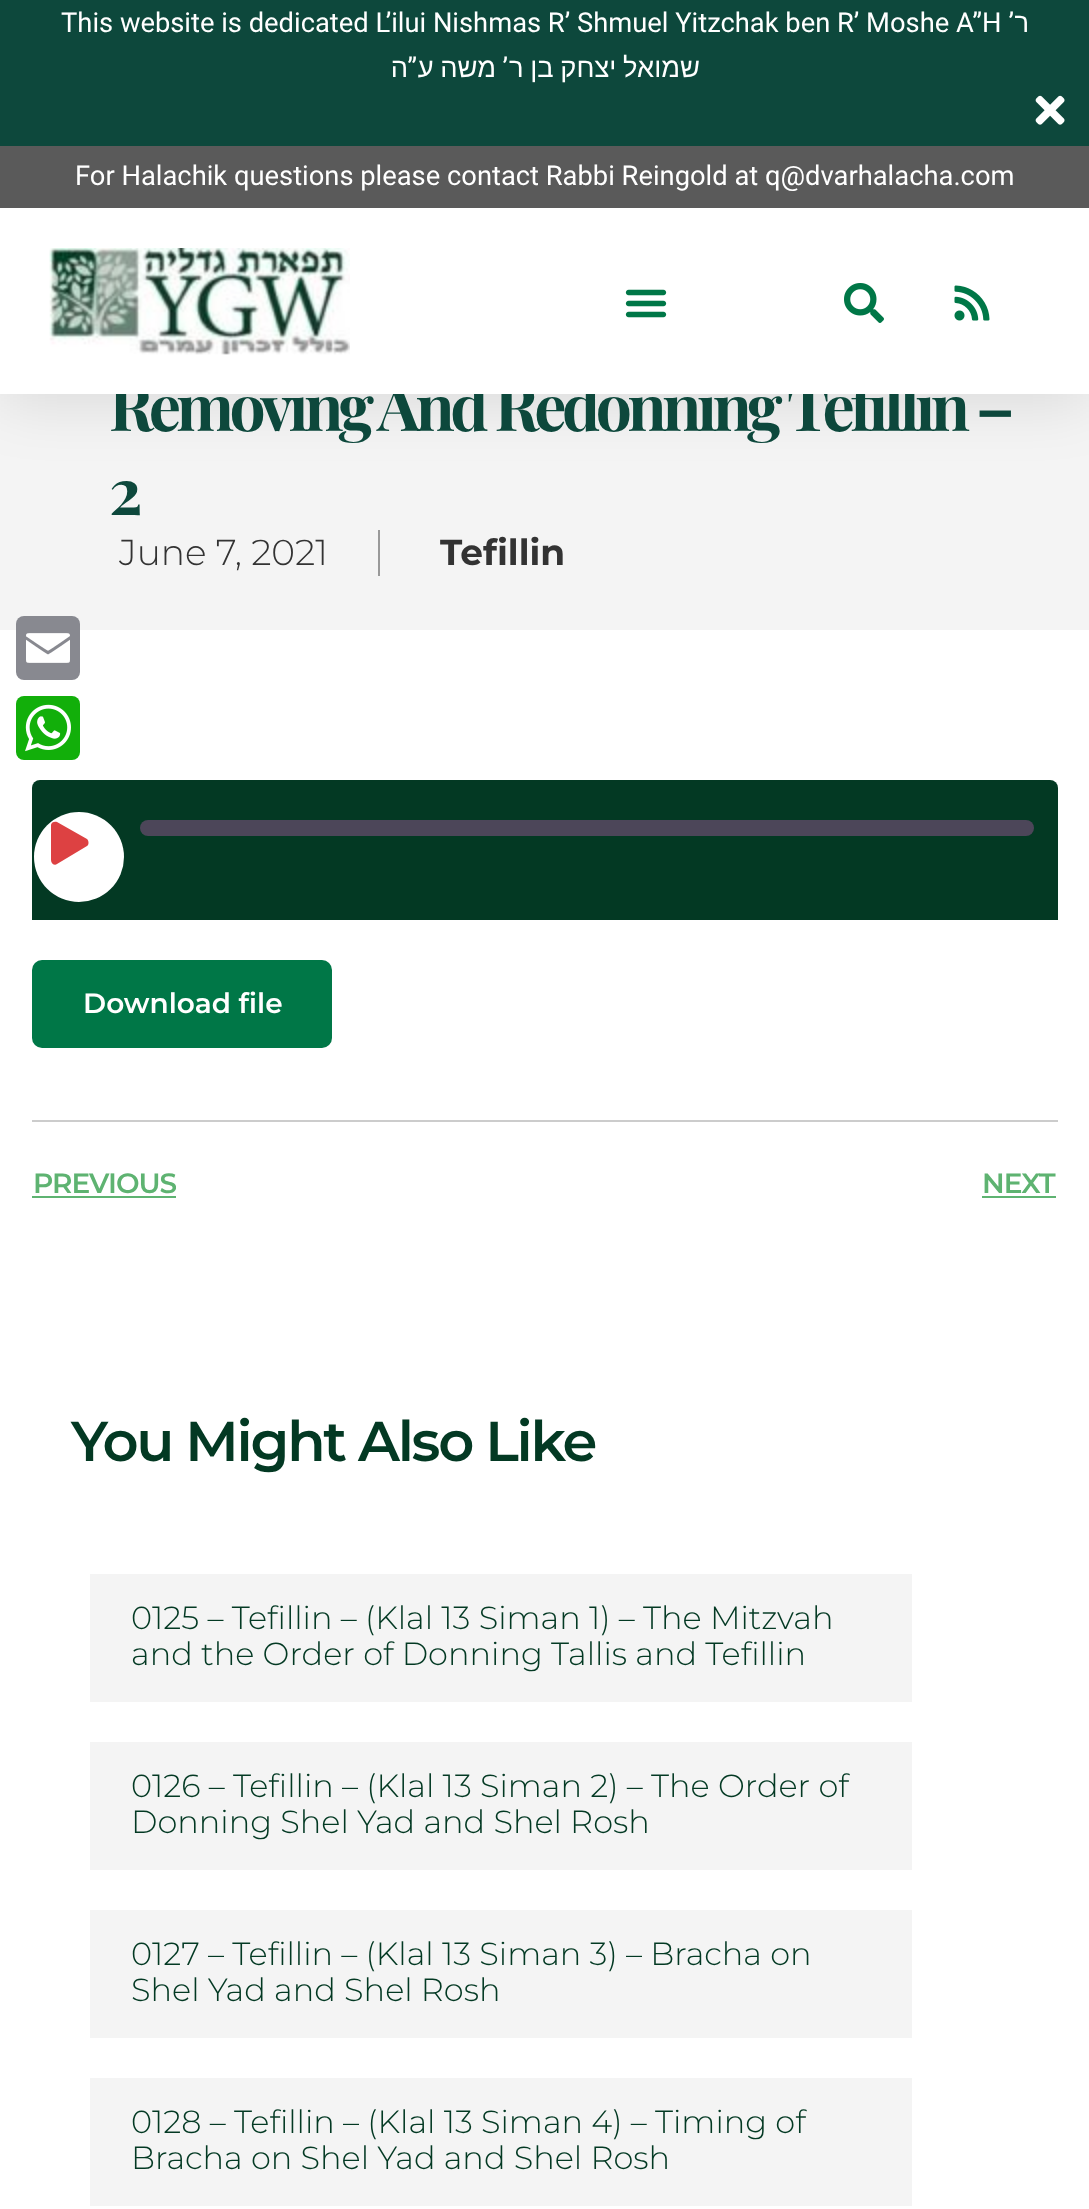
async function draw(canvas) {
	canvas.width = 1089;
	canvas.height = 2209;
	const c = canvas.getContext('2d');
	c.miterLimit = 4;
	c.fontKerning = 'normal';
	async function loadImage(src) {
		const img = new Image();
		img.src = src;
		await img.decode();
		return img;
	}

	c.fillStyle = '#fff';
	c.fillRect(0, 0, 1089, 2209);
	c.fillStyle = '#f4f4f4';
	c.fillRect(0, 394, 1089, 236);
	c.fillStyle = '#0000001a';
	c.filter = 'blur(30px)';
	c.beginPath();
	c.rect(0, 10, 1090, 394);
	c.fill();
	c.filter = 'none';
	c.fillStyle = '#0d483c';
	c.fillRect(0, 0, 1089, 146);
	c.font = '27.35px Roboto';
	c.fillStyle = '#fff';
	c.fillText('This website is dedicated L’ilui Nishmas R’ Shmuel Yitzchak ben R’ Moshe A”H', 61, 32);
	c.direction = 'rtl';
	c.fillText('’', 1014, 32);
	c.font = '27.35px Liberation Sans';
	c.fillText('ר', 1029, 32);
	c.fillText('ה', 408, 77);
	c.font = '27.35px Roboto';
	c.fillText('”', 417, 77);
	c.wordSpacing = '-1px';
	c.font = '27.35px Liberation Sans';
	c.fillText('משה ע', 496, 77);
	c.wordSpacing = '0px';
	c.font = '27.35px Roboto';
	c.fillText('’', 508, 77);
	c.wordSpacing = '-1px';
	c.font = '27.35px Liberation Sans';
	c.fillText('שמואל יצחק בן ר', 700, 77);
	c.drawImage(await loadImage('img1.png'), 1035, 95, 30, 30);
	c.fillStyle = '#5a5a5a';
	c.fillRect(0, 146, 1089, 62);
	c.wordSpacing = '0px';
	c.direction = 'ltr';
	c.font = '27.35px Roboto';
	c.fillStyle = '#fff';
	c.fillText('For Halachik questions please contact Rabbi Reingold at', 75, 185);
	c.fillText('q@dvarhalacha.com', 765, 185);
	c.letterSpacing = '-4.5px';
	c.font = 'bold 64px Playfair Display';
	c.fillStyle = '#0d483c';
	c.fillText('Removing And Redonning Tefillin –', 109, 431);
	c.fillStyle = '#fff';
	c.fillRect(0, 208, 1089, 186);
	c.drawImage(await loadImage('img2.png'), 49, 248, 301, 107);
	c.drawImage(await loadImage('img3.png'), 625, 289, 42, 29);
	c.drawImage(await loadImage('img4.png'), 844, 283, 40, 40);
	c.drawImage(await loadImage('img5.png'), 954, 285, 36, 36);
	c.fillStyle = '#0d483c';
	c.fillText('2', 109, 515);
	c.letterSpacing = '0px';
	c.font = '300 36px Montserrat';
	c.fillStyle = '#333';
	c.fillText('June 7, 2021', 119, 565);
	c.fillStyle = '#999';
	c.fillRect(378, 530, 2, 46);
	c.font = 'bold 36px Montserrat';
	c.fillStyle = '#333';
	c.fillText('Tefillin', 440, 565);
	c.fillStyle = '#ccc';
	c.fillRect(32, 1120, 1026, 2);
	c.fillStyle = '#033923';
	c.beginPath();
	c.roundRect(32, 780, 1026, 140, [8, 8, 0, 0]);
	c.fill();
	c.fillStyle = '#fff';
	c.beginPath();
	c.arc(79, 857, 45, 0, 2 * Math.PI);
	c.fill();
	c.fillStyle = '#dd4142';
	c.beginPath();
	c.moveTo(87, 839);
	c.lineTo(57, 822);
	c.bezierCurveTo(55, 821, 51, 822, 51, 825);
	c.lineTo(51, 860);
	c.bezierCurveTo(51, 864, 55, 866, 57, 864);
	c.lineTo(87, 846);
	c.bezierCurveTo(89, 845, 89, 841, 87, 839);
	c.closePath();
	c.fill();
	c.fillStyle = '#4c4659';
	c.beginPath();
	c.roundRect(140, 820, 894, 16, 8);
	c.fill();
	c.fillStyle = '#007747';
	c.beginPath();
	c.roundRect(32, 960, 300, 88, 10);
	c.fill();
	c.font = '600 28px Montserrat';
	c.fillStyle = '#fff';
	c.fillText('Download file', 83, 1013);
	c.save();
	c.beginPath();
	c.rect(32, 1162, 144, 44);
	c.clip();
	c.letterSpacing = '-1px';
	c.fillStyle = '#5eb371';
	c.fillText('PREVIOUS', 33, 1193);
	c.restore();
	c.fillStyle = '#5eb371';
	c.fillRect(32, 1196, 144, 2);
	c.letterSpacing = '-1px';
	c.fillText('NEXT', 982, 1193);
	c.fillRect(982, 1196, 74, 2);
	c.letterSpacing = '-2.25px';
	c.font = '600 56px Montserrat';
	c.fillStyle = '#033923';
	c.fillText('You Might Also Like', 71, 1461);
	c.fillStyle = '#f4f4f4';
	c.fillRect(90, 1574, 822, 128);
	c.letterSpacing = '0px';
	c.font = '300 32px Montserrat';
	c.fillStyle = '#033923';
	c.fillText('0125 – Tefillin – (Klal 13 Siman 1) – The Mitzvah', 131, 1629);
	c.fillText('and the Order of Donning Tallis and Tefillin', 131, 1665);
	c.fillStyle = '#f4f4f4';
	c.fillRect(90, 1742, 822, 128);
	c.fillStyle = '#033923';
	c.fillText('0126 – Tefillin – (Klal 13 Siman 2) – The Order of', 131, 1797);
	c.fillText('Donning Shel Yad and Shel Rosh', 131, 1833);
	c.fillStyle = '#f4f4f4';
	c.fillRect(90, 1910, 822, 128);
	c.fillStyle = '#033923';
	c.fillText('0127 – Tefillin – (Klal 13 Siman 3) – Bracha on', 131, 1965);
	c.fillText('Shel Yad and Shel Rosh', 131, 2001);
	c.fillStyle = '#f4f4f4';
	c.fillRect(90, 2078, 822, 128);
	c.fillStyle = '#033923';
	c.fillText('0128 – Tefillin – (Klal 13 Siman 4) – Timing of', 131, 2133);
	c.fillText('Bracha on Shel Yad and Shel Rosh', 131, 2169);
	c.fillStyle = '#888990';
	c.beginPath();
	c.roundRect(16, 616, 64, 64, 8);
	c.fill();
	c.drawImage(await loadImage('img6.png'), 26, 633, 44, 30);
	c.fillStyle = '#12af0a';
	c.beginPath();
	c.roundRect(16, 696, 64, 64, 8);
	c.fill();
	c.drawImage(await loadImage('img7.png'), 25, 704, 46, 48);
}

draw(document.querySelector('canvas'));
